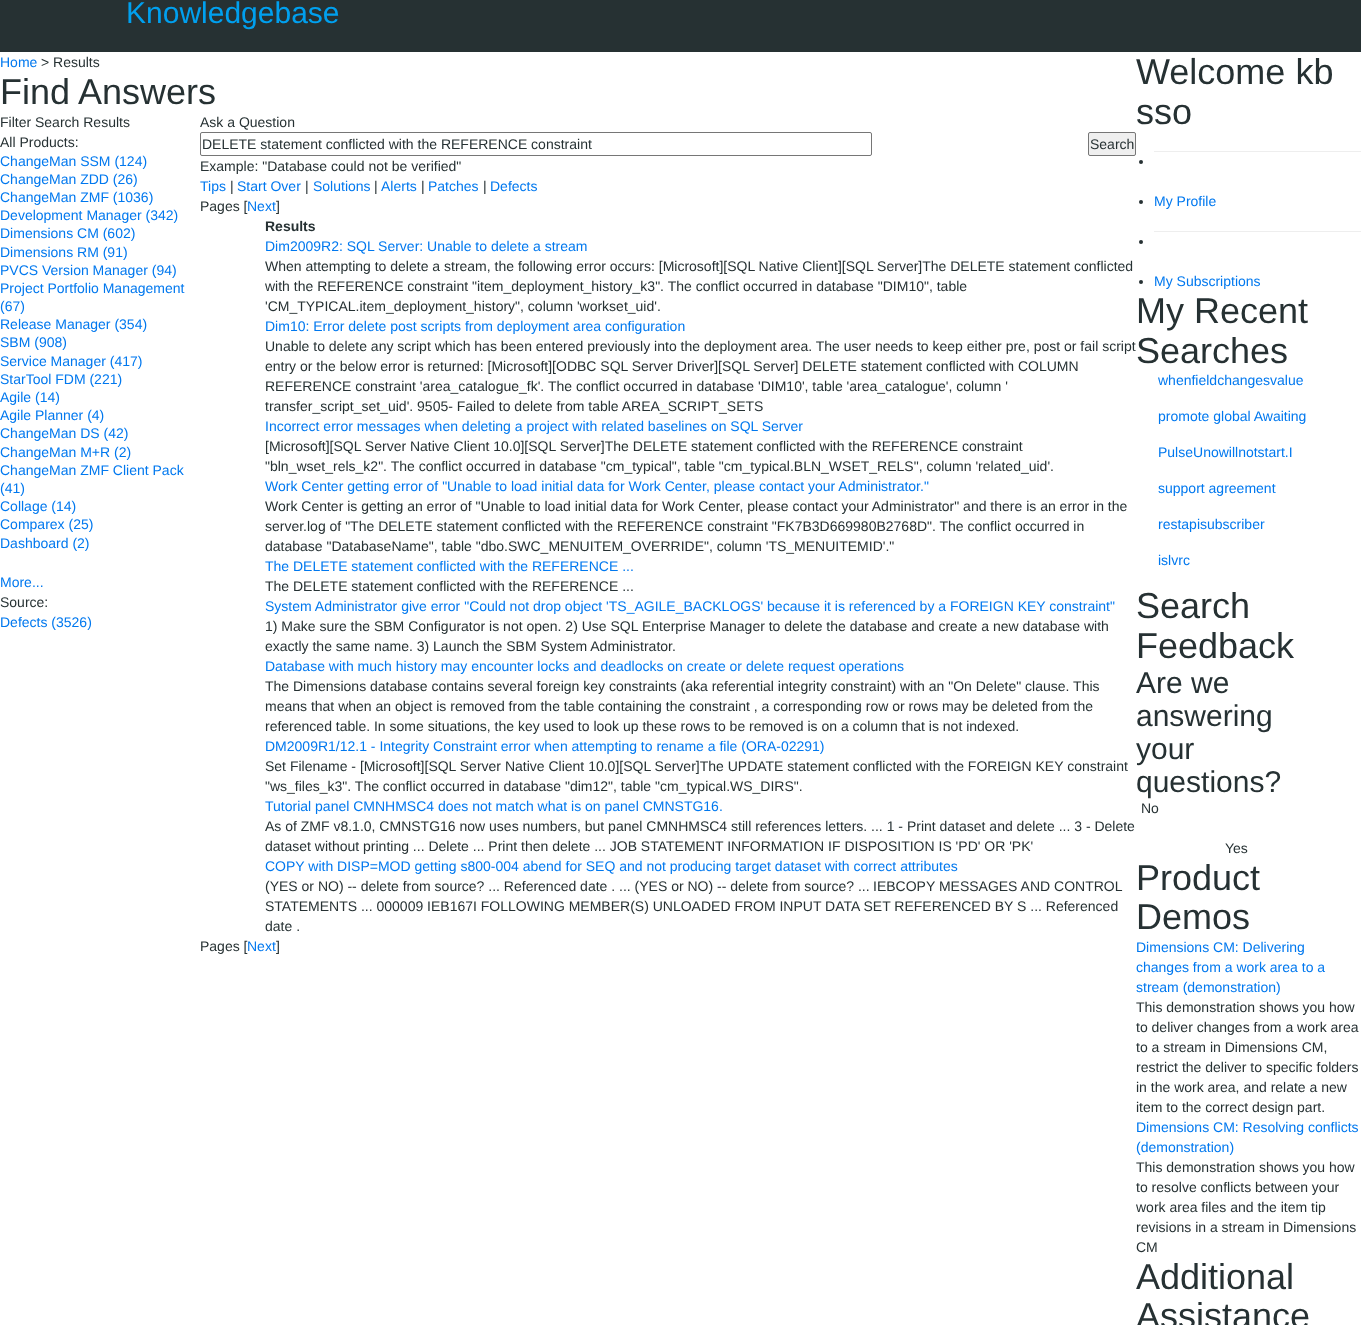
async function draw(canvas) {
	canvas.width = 1361;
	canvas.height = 1325;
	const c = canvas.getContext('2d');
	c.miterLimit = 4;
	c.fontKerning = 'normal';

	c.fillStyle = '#fff';
	c.fillRect(0, 0, 1361, 1325);
	c.fillStyle = '#263133';
	c.fillRect(0, 0, 1361, 52);
	c.font = '30px Liberation Sans';
	c.fillStyle = '#00a0ef';
	c.fillText('Knowledgebase', 126, 23);
	c.font = '14px Liberation Sans';
	c.fillStyle = '#0078ef';
	c.fillText('Home', 0, 67);
	c.fillStyle = '#263133';
	c.fillText('> Results', 41, 67);
	c.font = '36px Liberation Sans';
	c.fillText('Find Answers', 0, 104);
	c.font = '14px Liberation Sans';
	c.fillText('Filter Search Results', 0, 127);
	c.fillText('All Products:', 0, 147);
	c.fillStyle = '#0078ef';
	for (const [text, x, y] of [
		['ChangeMan SSM (124)', 0, 166],
		['ChangeMan ZDD (26)', 0, 184],
		['ChangeMan ZMF (1036)', 0, 202],
		['Development Manager (342)', 0, 220],
		['Dimensions CM (602)', 0, 238],
		['Dimensions RM (91)', 0, 257],
		['PVCS Version Manager (94)', 0, 275],
		['Project Portfolio Management', 0, 293],
		['(67)', 0, 311],
		['Release Manager (354)', 0, 329],
		['SBM (908)', 0, 347],
		['Service Manager (417)', 0, 366],
		['StarTool FDM (221)', 0, 384],
		['Agile (14)', 0, 402],
		['Agile Planner (4)', 0, 420],
		['ChangeMan DS (42)', 0, 438],
		['ChangeMan M+R (2)', 0, 457],
		['ChangeMan ZMF Client Pack', 0, 475],
		['(41)', 0, 493],
		['Collage (14)', 0, 511],
		['Comparex (25)', 0, 529],
		['Dashboard (2)', 0, 548],
		['More...', 0, 587],
	]) {
		c.fillText(text, x, y);
	}
	c.fillStyle = '#263133';
	c.fillText('Source:', 0, 607);
	c.fillStyle = '#0078ef';
	c.fillText('Defects (3526)', 0, 627);
	c.fillStyle = '#263133';
	c.fillText('Ask a Question', 200, 127);
	c.beginPath();
	c.roundRect(200.5, 132.5, 671, 23, 1.5);
	c.strokeStyle = '#767676';
	c.stroke();
	c.fillText('DELETE statement conflicted with the REFERENCE constraint', 202, 149);
	c.fillStyle = '#efefef';
	c.beginPath();
	c.roundRect(1088.5, 132.5, 47, 23, 1.5);
	c.fill();
	c.stroke();
	c.fillStyle = '#263133';
	c.fillText('Search', 1090, 149);
	c.fillText('Example: "Database could not be verified"', 200, 171);
	c.fillStyle = '#0078ef';
	c.fillText('Tips', 200, 191);
	c.fillStyle = '#263133';
	c.fillText('|', 230, 191);
	c.fillStyle = '#0078ef';
	c.fillText('Start Over', 237, 191);
	c.fillStyle = '#263133';
	c.fillText('|', 305, 191);
	c.fillStyle = '#0078ef';
	c.fillText('Solutions', 313, 191);
	c.fillStyle = '#263133';
	c.fillText('|', 374, 191);
	c.fillStyle = '#0078ef';
	c.fillText('Alerts', 381, 191);
	c.fillStyle = '#263133';
	c.fillText('|', 421, 191);
	c.fillStyle = '#0078ef';
	c.fillText('Patches', 428, 191);
	c.fillStyle = '#263133';
	c.fillText('|', 483, 191);
	c.fillStyle = '#0078ef';
	c.fillText('Defects', 490, 191);
	c.fillStyle = '#263133';
	c.fillText('Pages [', 200, 211);
	c.fillStyle = '#0078ef';
	c.fillText('Next', 247, 211);
	c.fillStyle = '#263133';
	c.fillText(']', 276, 211);
	c.font = 'bold 14px Liberation Sans';
	c.fillText('Results', 265, 231);
	c.font = '14px Liberation Sans';
	c.fillStyle = '#0078ef';
	c.fillText('Dim2009R2: SQL Server: Unable to delete a stream', 265, 251);
	c.fillStyle = '#263133';
	for (const [text, x, y] of [
		['When attempting to delete a stream, the following error occurs: [Microsoft][SQL Native Client][SQL Server]The DELETE statement conflicted', 265, 271],
		['with the REFERENCE constraint "item_deployment_history_k3". The conflict occurred in database "DIM10", table', 265, 291],
		['\'CM_TYPICAL.item_deployment_history", column \'workset_uid\'.', 265, 311],
	]) {
		c.fillText(text, x, y);
	}
	c.fillStyle = '#0078ef';
	c.fillText('Dim10: Error delete post scripts from deployment area configuration', 265, 331);
	c.fillStyle = '#263133';
	for (const [text, x, y] of [
		['Unable to delete any script which has been entered previously into the deployment area. The user needs to keep either pre, post or fail script', 265, 351],
		['entry or the below error is returned: [Microsoft][ODBC SQL Server Driver][SQL Server] DELETE statement conflicted with COLUMN', 265, 371],
		['REFERENCE constraint \'area_catalogue_fk\'. The conflict occurred in database \'DIM10\', table \'area_catalogue\', column \'', 265, 391],
		['transfer_script_set_uid\'. 9505- Failed to delete from table AREA_SCRIPT_SETS', 265, 411],
	]) {
		c.fillText(text, x, y);
	}
	c.fillStyle = '#0078ef';
	c.fillText('Incorrect error messages when deleting a project with related baselines on SQL Server', 265, 431);
	c.fillStyle = '#263133';
	c.fillText('[Microsoft][SQL Server Native Client 10.0][SQL Server]The DELETE statement conflicted with the REFERENCE constraint', 265, 451);
	c.fillText('"bln_wset_rels_k2". The conflict occurred in database "cm_typical", table "cm_typical.BLN_WSET_RELS", column \'related_uid\'.', 265, 471);
	c.fillStyle = '#0078ef';
	c.fillText('Work Center getting error of "Unable to load initial data for Work Center, please contact your Administrator."', 265, 491);
	c.fillStyle = '#263133';
	for (const [text, x, y] of [
		['Work Center is getting an error of "Unable to load initial data for Work Center, please contact your Administrator" and there is an error in the', 265, 511],
		['server.log of "The DELETE statement conflicted with the REFERENCE constraint "FK7B3D669980B2768D". The conflict occurred in', 265, 531],
		['database "DatabaseName", table "dbo.SWC_MENUITEM_OVERRIDE", column \'TS_MENUITEMID\'."', 265, 551],
	]) {
		c.fillText(text, x, y);
	}
	c.fillStyle = '#0078ef';
	c.fillText('The DELETE statement conflicted with the REFERENCE ...', 265, 571);
	c.fillStyle = '#263133';
	c.fillText('The DELETE statement conflicted with the REFERENCE ...', 265, 591);
	c.fillStyle = '#0078ef';
	c.fillText('System Administrator give error "Could not drop object \'TS_AGILE_BACKLOGS\' because it is referenced by a FOREIGN KEY constraint"', 265, 611);
	c.fillStyle = '#263133';
	c.fillText('1) Make sure the SBM Configurator is not open. 2) Use SQL Enterprise Manager to delete the database and create a new database with', 265, 631);
	c.fillText('exactly the same name. 3) Launch the SBM System Administrator.', 265, 651);
	c.fillStyle = '#0078ef';
	c.fillText('Database with much history may encounter locks and deadlocks on create or delete request operations', 265, 671);
	c.fillStyle = '#263133';
	for (const [text, x, y] of [
		['The Dimensions database contains several foreign key constraints (aka referential integrity constraint) with an "On Delete" clause. This', 265, 691],
		['means that when an object is removed from the table containing the constraint , a corresponding row or rows may be deleted from the', 265, 711],
		['referenced table. In some situations, the key used to look up these rows to be removed is on a column that is not indexed.', 265, 731],
	]) {
		c.fillText(text, x, y);
	}
	c.fillStyle = '#0078ef';
	c.fillText('DM2009R1/12.1 - Integrity Constraint error when attempting to rename a file (ORA-02291)', 265, 751);
	c.fillStyle = '#263133';
	c.fillText('Set Filename - [Microsoft][SQL Server Native Client 10.0][SQL Server]The UPDATE statement conflicted with the FOREIGN KEY constraint', 265, 771);
	c.fillText('"ws_files_k3". The conflict occurred in database "dim12", table "cm_typical.WS_DIRS".', 265, 791);
	c.fillStyle = '#0078ef';
	c.fillText('Tutorial panel CMNHMSC4 does not match what is on panel CMNSTG16.', 265, 811);
	c.fillStyle = '#263133';
	c.fillText('As of ZMF v8.1.0, CMNSTG16 now uses numbers, but panel CMNHMSC4 still references letters. ... 1 - Print dataset and delete ... 3 - Delete', 265, 831);
	c.fillText('dataset without printing ... Delete ... Print then delete ... JOB STATEMENT INFORMATION IF DISPOSITION IS \'PD\' OR \'PK\'', 265, 851);
	c.fillStyle = '#0078ef';
	c.fillText('COPY with DISP=MOD getting s800-004 abend for SEQ and not producing target dataset with correct attributes', 265, 871);
	c.fillStyle = '#263133';
	for (const [text, x, y] of [
		['(YES or NO) -- delete from source? ... Referenced date . ... (YES or NO) -- delete from source? ...', 265, 891],
		['IEBCOPY MESSAGES AND CONTROL', 873, 891],
		['STATEMENTS ... 000009 IEB167I FOLLOWING MEMBER(S) UNLOADED FROM INPUT DATA SET REFERENCED BY S ... Referenced', 265, 911],
		['date .', 265, 931],
		['Pages [', 200, 951],
	]) {
		c.fillText(text, x, y);
	}
	c.fillStyle = '#0078ef';
	c.fillText('Next', 247, 951);
	c.fillStyle = '#263133';
	c.fillText(']', 276, 951);
	c.font = '36px Liberation Sans';
	c.fillText('Welcome kb', 1136, 84);
	c.fillText('sso', 1136, 124);
	c.fillStyle = '#eee';
	c.fillRect(1154, 151, 207, 1);
	c.fillStyle = '#263133';
	c.beginPath();
	c.arc(1141, 162, 2, 0, 2 * Math.PI);
	c.fill();
	c.beginPath();
	c.arc(1141, 202, 2, 0, 2 * Math.PI);
	c.fill();
	c.font = '14px Liberation Sans';
	c.fillStyle = '#0078ef';
	c.fillText('My Profile', 1154, 206);
	c.fillStyle = '#eee';
	c.fillRect(1154, 231, 207, 1);
	c.fillStyle = '#263133';
	c.beginPath();
	c.arc(1141, 242, 2, 0, 2 * Math.PI);
	c.fill();
	c.beginPath();
	c.arc(1141, 282, 2, 0, 2 * Math.PI);
	c.fill();
	c.fillStyle = '#0078ef';
	c.fillText('My Subscriptions', 1154, 286);
	c.font = '36px Liberation Sans';
	c.fillStyle = '#263133';
	c.fillText('My Recent', 1136, 323);
	c.fillText('Searches', 1136, 363);
	c.font = '14px Liberation Sans';
	c.fillStyle = '#0078ef';
	for (const [text, x, y] of [
		['whenfieldchangesvalue', 1158, 385],
		['promote global Awaiting', 1158, 421],
		['PulseUnowillnotstart.I', 1158, 457],
		['support agreement', 1158, 493],
		['restapisubscriber', 1158, 529],
		['islvrc', 1158, 565],
	]) {
		c.fillText(text, x, y);
	}
	c.font = '36px Liberation Sans';
	c.fillStyle = '#263133';
	c.fillText('Search', 1136, 618);
	c.fillText('Feedback', 1136, 658);
	c.font = '30px Liberation Sans';
	for (const [text, x, y] of [
		['Are we', 1136, 693],
		['answering', 1136, 726],
		['your', 1136, 759],
		['questions?', 1136, 792],
	]) {
		c.fillText(text, x, y);
	}
	c.font = '14px Liberation Sans';
	c.fillText('No', 1141, 813);
	c.fillText('Yes', 1225, 853);
	c.font = '36px Liberation Sans';
	c.fillText('Product', 1136, 890);
	c.fillText('Demos', 1136, 929);
	c.font = '14px Liberation Sans';
	c.fillStyle = '#0078ef';
	for (const [text, x, y] of [
		['Dimensions CM: Delivering', 1136, 952],
		['changes from a work area to a', 1136, 972],
		['stream (demonstration)', 1136, 992],
	]) {
		c.fillText(text, x, y);
	}
	c.fillStyle = '#263133';
	for (const [text, x, y] of [
		['This demonstration shows you how', 1136, 1012],
		['to deliver changes from a work area', 1136, 1032],
		['to a stream in Dimensions CM,', 1136, 1052],
		['restrict the deliver to specific folders', 1136, 1072],
		['in the work area, and relate a new', 1136, 1092],
		['item to the correct design part.', 1136, 1112],
	]) {
		c.fillText(text, x, y);
	}
	c.fillStyle = '#0078ef';
	c.fillText('Dimensions CM: Resolving conflicts', 1136, 1132);
	c.fillText('(demonstration)', 1136, 1152);
	c.fillStyle = '#263133';
	for (const [text, x, y] of [
		['This demonstration shows you how', 1136, 1172],
		['to resolve conflicts between your', 1136, 1192],
		['work area files and the item tip', 1136, 1212],
		['revisions in a stream in Dimensions', 1136, 1232],
		['CM', 1136, 1252],
	]) {
		c.fillText(text, x, y);
	}
	c.font = '36px Liberation Sans';
	c.fillText('Additional', 1136, 1289);
	c.fillText('Assistance', 1136, 1328);
}

draw(document.querySelector('canvas'));
